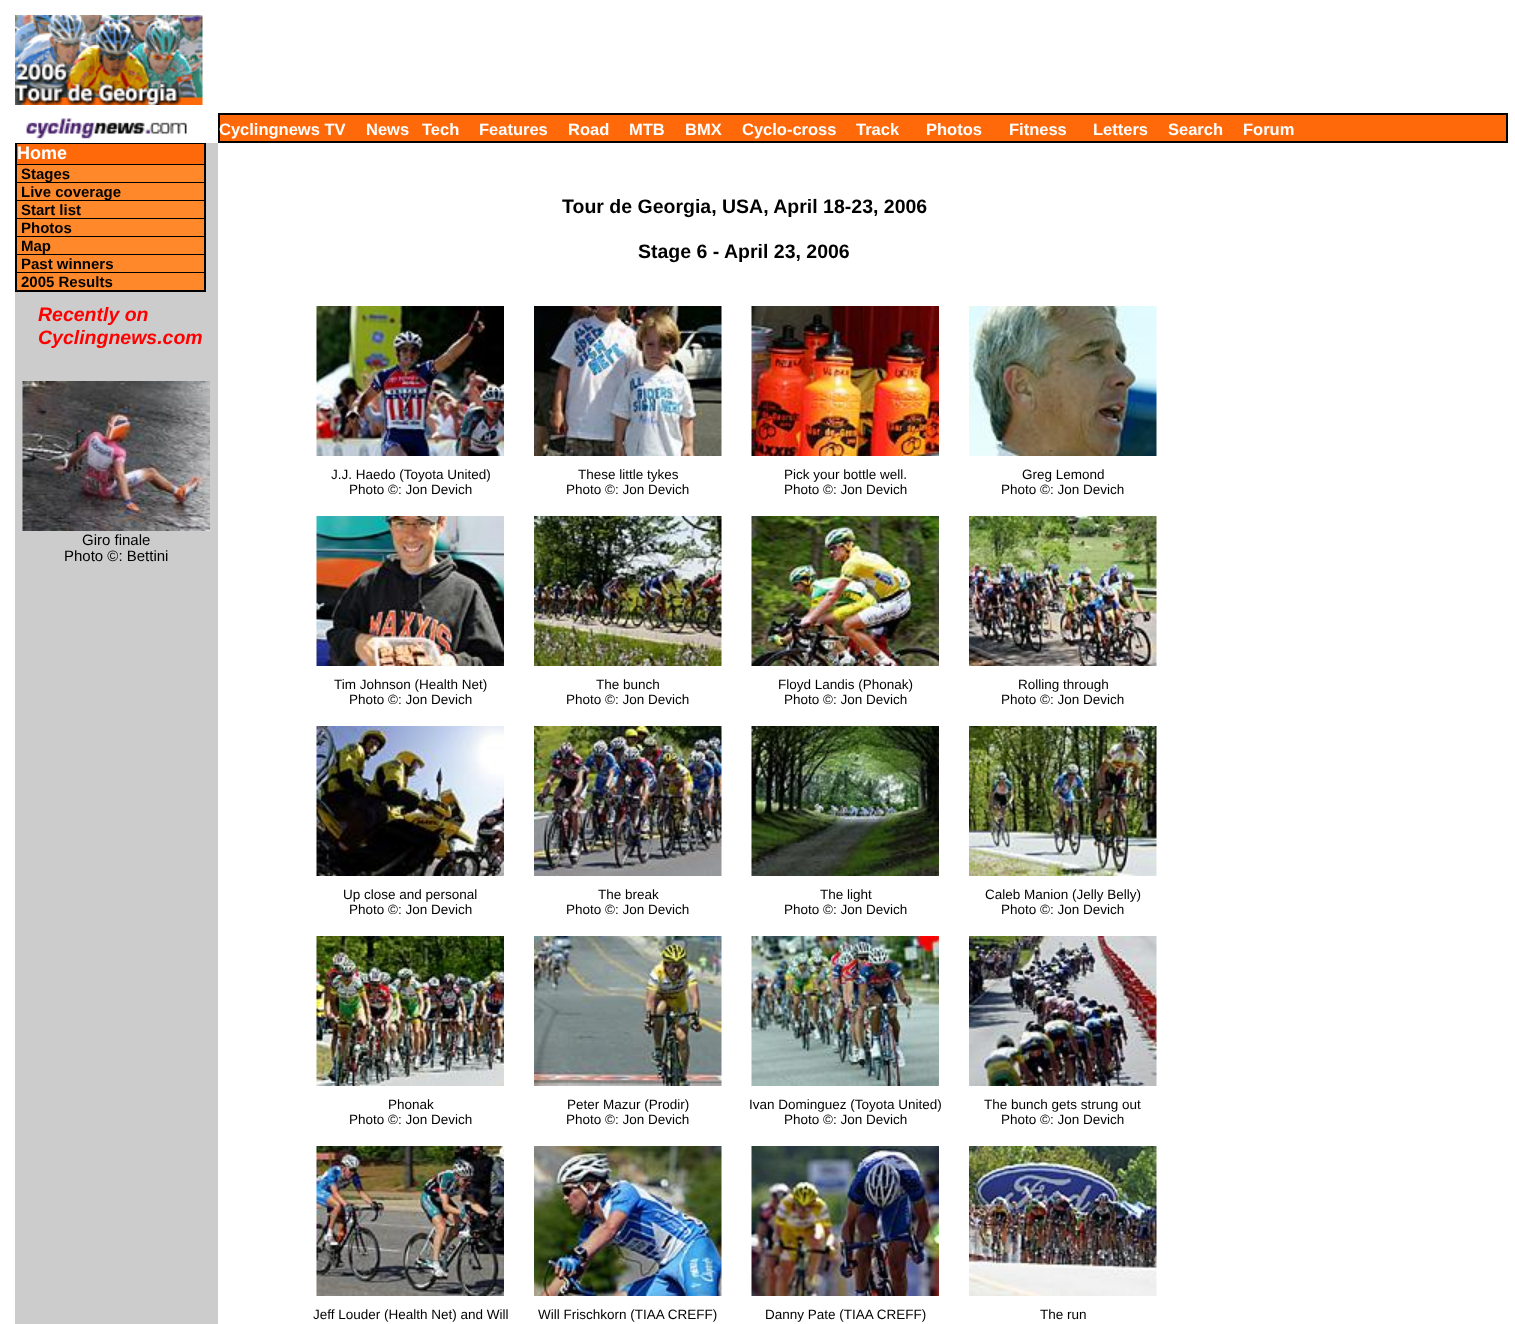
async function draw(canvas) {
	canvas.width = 1515;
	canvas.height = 1324;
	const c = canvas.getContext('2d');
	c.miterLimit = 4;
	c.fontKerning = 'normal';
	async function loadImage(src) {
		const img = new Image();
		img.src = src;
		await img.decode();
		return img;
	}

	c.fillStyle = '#fff';
	c.fillRect(0, 0, 1515, 1324);
	c.drawImage(await loadImage('img1.png'), 15, 15, 188, 90);
	c.drawImage(await loadImage('img2.png'), 26, 118, 161, 21);
	c.fillStyle = '#ff690a';
	c.beginPath();
	c.rect(219, 114, 1288, 28);
	c.fill();
	c.strokeStyle = '#000';
	c.lineWidth = 2;
	c.stroke();
	c.font = 'bold 16.5px Liberation Sans';
	c.fillStyle = '#fff';
	for (const [text, x, y] of [
		['Cyclingnews TV', 219, 135],
		['News', 366, 135],
		['Tech', 422, 135],
		['Features', 479, 135],
		['Road', 568, 135],
		['MTB', 629, 135],
		['BMX', 685, 135],
		['Cyclo-cross', 742, 135],
		['Track', 856, 135],
		['Photos', 926, 135],
		['Fitness', 1009, 135],
		['Letters', 1093, 135],
		['Search', 1168, 135],
		['Forum', 1243, 135],
	]) {
		c.fillText(text, x, y);
	}
	for (const [x, y, w, h, color] of [
		[15, 143, 203, 1181, '#ccc'],
		[15, 143, 191, 1, '#000'],
		[17, 144, 187, 20, '#ff690a'],
		[204, 144, 2, 147, '#000'],
		[15, 164, 191, 1, '#000'],
		[15, 144, 2, 21, '#000'],
	]) {
		c.fillStyle = color;
		c.fillRect(x, y, w, h);
	}
	c.font = 'bold 18px Liberation Sans';
	c.fillStyle = '#fff';
	c.fillText('Home', 17, 159);
	for (const [x, y, w, h, color] of [
		[17, 165, 187, 17, '#ff892a'],
		[15, 182, 191, 1, '#000'],
		[15, 165, 2, 18, '#000'],
	]) {
		c.fillStyle = color;
		c.fillRect(x, y, w, h);
	}
	c.font = 'bold 15px Liberation Sans';
	c.fillText('Stages', 21, 179);
	for (const [x, y, w, h, color] of [
		[17, 183, 187, 17, '#ff892a'],
		[15, 200, 191, 1, '#000'],
		[15, 183, 2, 18, '#000'],
	]) {
		c.fillStyle = color;
		c.fillRect(x, y, w, h);
	}
	c.fillText('Live coverage', 21, 197);
	for (const [x, y, w, h, color] of [
		[17, 201, 187, 17, '#ff892a'],
		[15, 218, 191, 1, '#000'],
		[15, 201, 2, 18, '#000'],
	]) {
		c.fillStyle = color;
		c.fillRect(x, y, w, h);
	}
	c.fillText('Start list', 21, 215);
	for (const [x, y, w, h, color] of [
		[17, 219, 187, 17, '#ff892a'],
		[15, 236, 191, 1, '#000'],
		[15, 219, 2, 18, '#000'],
	]) {
		c.fillStyle = color;
		c.fillRect(x, y, w, h);
	}
	c.fillText('Photos', 21, 233);
	for (const [x, y, w, h, color] of [
		[17, 237, 187, 17, '#ff892a'],
		[15, 254, 191, 1, '#000'],
		[15, 237, 2, 18, '#000'],
	]) {
		c.fillStyle = color;
		c.fillRect(x, y, w, h);
	}
	c.fillText('Map', 21, 251);
	for (const [x, y, w, h, color] of [
		[17, 255, 187, 17, '#ff892a'],
		[15, 272, 191, 1, '#000'],
		[15, 255, 2, 18, '#000'],
	]) {
		c.fillStyle = color;
		c.fillRect(x, y, w, h);
	}
	c.fillText('Past winners', 21, 269);
	for (const [x, y, w, h, color] of [
		[17, 273, 187, 17, '#ff892a'],
		[15, 290, 191, 2, '#000'],
		[15, 273, 2, 18, '#000'],
	]) {
		c.fillStyle = color;
		c.fillRect(x, y, w, h);
	}
	c.fillText('2005 Results', 21, 287);
	c.font = 'italic bold 19.5px Liberation Sans';
	c.fillStyle = '#f00';
	c.fillText('Recently on', 38, 321);
	c.fillText('Cyclingnews.com', 38, 344);
	c.drawImage(await loadImage('img3.png'), 22, 381, 188, 150);
	c.font = '15px Liberation Sans';
	c.fillStyle = '#000';
	c.fillText('Giro finale', 82, 545);
	c.fillText('Photo ©: Bettini', 64, 561);
	c.font = 'bold 19.5px Liberation Sans';
	c.fillText('Tour de Georgia, USA, April 18-23, 2006', 562, 213);
	c.fillText('Stage 6 - April 23, 2006', 638, 258);
	c.drawImage(await loadImage('img4.png'), 316, 306, 188, 150);
	c.font = '13.5px Liberation Sans';
	c.fillText('J.J. Haedo (Toyota United)', 331, 479);
	c.fillText('Photo ©: Jon Devich', 349, 494);
	c.drawImage(await loadImage('img5.png'), 534, 306, 188, 150);
	c.fillText('These little tykes', 578, 479);
	c.fillText('Photo ©: Jon Devich', 566, 494);
	c.drawImage(await loadImage('img6.png'), 751, 306, 188, 150);
	c.fillText('Pick your bottle well.', 784, 479);
	c.fillText('Photo ©: Jon Devich', 784, 494);
	c.drawImage(await loadImage('img7.png'), 969, 306, 188, 150);
	c.fillText('Greg Lemond', 1022, 479);
	c.fillText('Photo ©: Jon Devich', 1001, 494);
	c.drawImage(await loadImage('img8.png'), 316, 516, 188, 150);
	c.fillText('Tim Johnson (Health Net)', 334, 689);
	c.fillText('Photo ©: Jon Devich', 349, 704);
	c.drawImage(await loadImage('img9.png'), 534, 516, 188, 150);
	c.fillText('The bunch', 596, 689);
	c.fillText('Photo ©: Jon Devich', 566, 704);
	c.drawImage(await loadImage('img10.png'), 751, 516, 188, 150);
	c.fillText('Floyd Landis (Phonak)', 778, 689);
	c.fillText('Photo ©: Jon Devich', 784, 704);
	c.drawImage(await loadImage('img11.png'), 969, 516, 188, 150);
	c.fillText('Rolling through', 1018, 689);
	c.fillText('Photo ©: Jon Devich', 1001, 704);
	c.drawImage(await loadImage('img12.png'), 316, 726, 188, 150);
	c.fillText('Up close and personal', 343, 899);
	c.fillText('Photo ©: Jon Devich', 349, 914);
	c.drawImage(await loadImage('img13.png'), 534, 726, 188, 150);
	c.fillText('The break', 598, 899);
	c.fillText('Photo ©: Jon Devich', 566, 914);
	c.drawImage(await loadImage('img14.png'), 751, 726, 188, 150);
	c.fillText('The light', 820, 899);
	c.fillText('Photo ©: Jon Devich', 784, 914);
	c.drawImage(await loadImage('img15.png'), 969, 726, 188, 150);
	c.fillText('Caleb Manion (Jelly Belly)', 985, 899);
	c.fillText('Photo ©: Jon Devich', 1001, 914);
	c.drawImage(await loadImage('img16.png'), 316, 936, 188, 150);
	c.fillText('Phonak', 388, 1109);
	c.fillText('Photo ©: Jon Devich', 349, 1124);
	c.drawImage(await loadImage('img17.png'), 534, 936, 188, 150);
	c.fillText('Peter Mazur (Prodir)', 567, 1109);
	c.fillText('Photo ©: Jon Devich', 566, 1124);
	c.drawImage(await loadImage('img18.png'), 751, 936, 188, 150);
	c.fillText('Ivan Dominguez (Toyota United)', 749, 1109);
	c.fillText('Photo ©: Jon Devich', 784, 1124);
	c.drawImage(await loadImage('img19.png'), 969, 936, 188, 150);
	c.fillText('The bunch gets strung out', 984, 1109);
	c.fillText('Photo ©: Jon Devich', 1001, 1124);
	c.drawImage(await loadImage('img20.png'), 316, 1146, 188, 150);
	c.fillText('Jeff Louder (Health Net) and Will', 313, 1319);
	c.drawImage(await loadImage('img21.png'), 534, 1146, 188, 150);
	c.fillText('Will Frischkorn (TIAA CREFF)', 538, 1319);
	c.drawImage(await loadImage('img22.png'), 751, 1146, 188, 150);
	c.fillText('Danny Pate (TIAA CREFF)', 765, 1319);
	c.drawImage(await loadImage('img23.png'), 969, 1146, 188, 150);
	c.fillText('The run', 1040, 1319);
}

draw(document.querySelector('canvas'));
